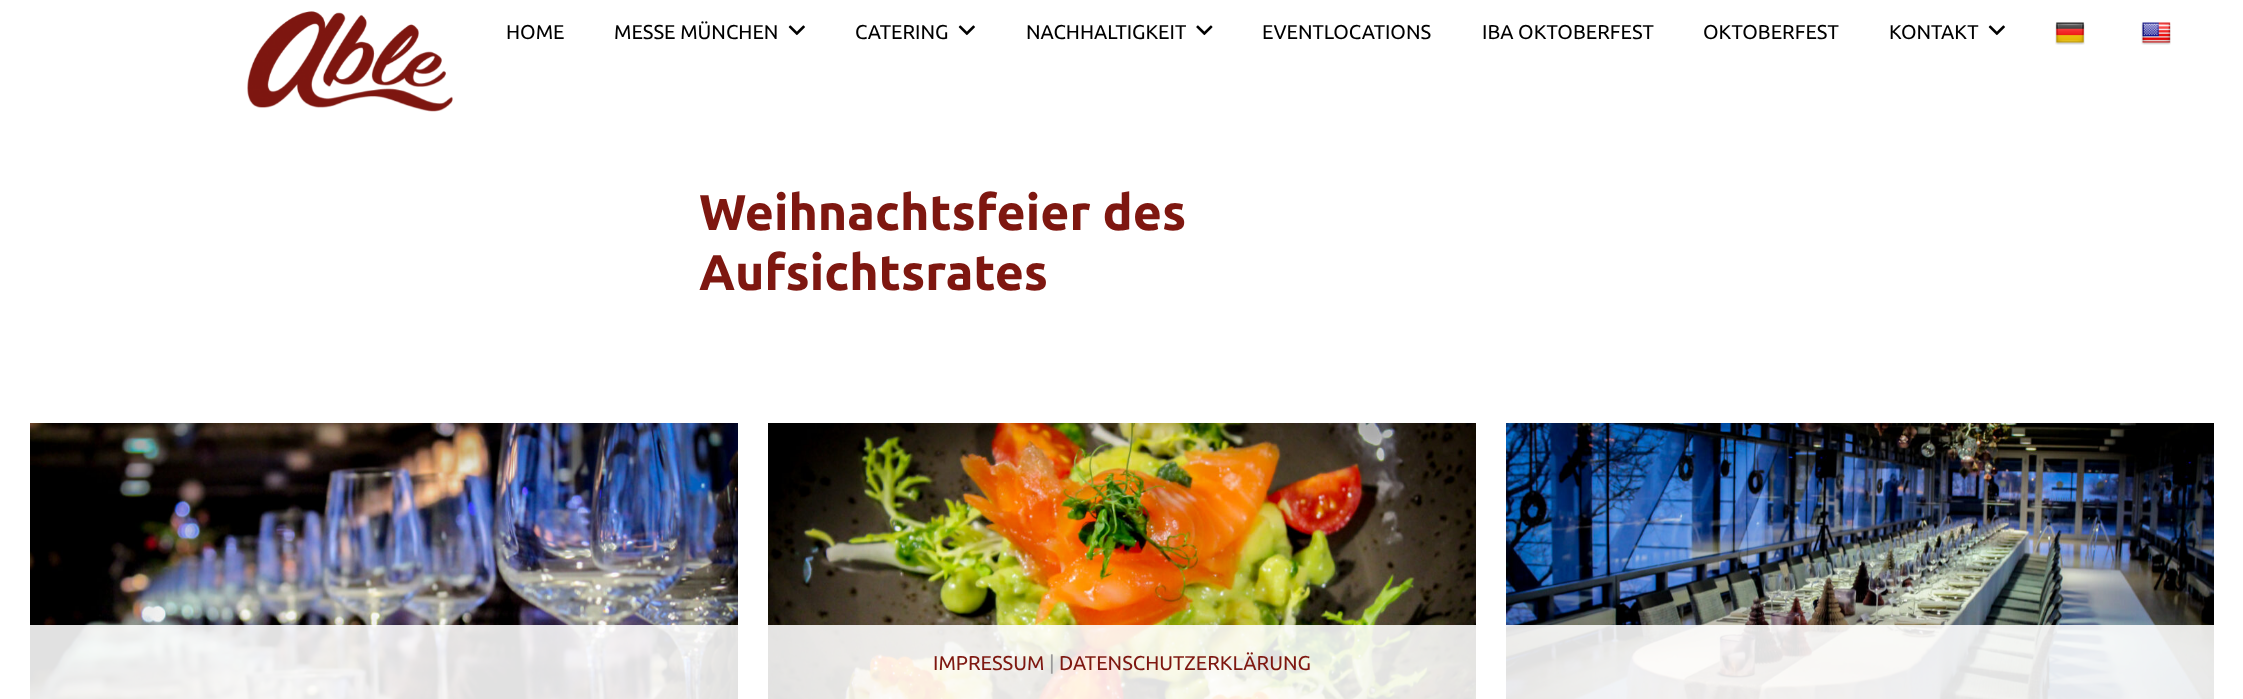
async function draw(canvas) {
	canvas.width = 2243;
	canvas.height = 699;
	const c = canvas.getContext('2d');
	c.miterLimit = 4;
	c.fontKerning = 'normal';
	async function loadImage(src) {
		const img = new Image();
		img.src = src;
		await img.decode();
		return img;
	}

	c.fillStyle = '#fff';
	c.fillRect(0, 0, 2243, 699);
	c.drawImage(await loadImage('img1.png'), 247, 11, 206, 101);
	c.font = '20px Ubuntu';
	c.fillStyle = '#000';
	c.fillText('HOME', 506, 39);
	c.fillText('MESSE MÜNCHEN', 614, 39);
	c.drawImage(await loadImage('img2.png'), 788, 25, 17, 11);
	c.fillText('CATERING', 855, 39);
	c.drawImage(await loadImage('img2.png'), 958, 25, 17, 11);
	c.fillText('NACHHALTIGKEIT', 1026, 39);
	c.drawImage(await loadImage('img3.png'), 1196, 25, 17, 11);
	for (const [text, x, y] of [
		['EVENTLOCATIONS', 1262, 39],
		['IBA OKTOBERFEST', 1482, 39],
		['OKTOBERFEST', 1703, 39],
		['KONTAKT', 1889, 39],
	]) {
		c.fillText(text, x, y);
	}
	c.drawImage(await loadImage('img2.png'), 1988, 25, 17, 11);
	c.drawImage(await loadImage('img4.png'), 2055, 22, 30, 23);
	c.drawImage(await loadImage('img5.png'), 2141, 22, 30, 23);
	c.font = 'bold 50px Ubuntu';
	c.fillStyle = '#7e1710';
	c.fillText('Weihnachtsfeier des', 699, 230);
	c.fillText('Aufsichtsrates', 699, 290);
	c.drawImage(await loadImage('img6.png'), 30, 423, 708, 276);
	c.drawImage(await loadImage('img7.png'), 768, 423, 708, 276);
	c.drawImage(await loadImage('img8.png'), 1506, 423, 708, 276);
	c.fillStyle = '#ffffffa8';
	c.fillRect(30, 625, 2184, 74);
	c.fillRect(30, 625, 2184, 74);
	c.font = '20px Ubuntu';
	c.fillStyle = '#7e1710';
	c.fillText('IMPRESSUM', 933, 670);
	c.fillStyle = '#999';
	c.fillText('|', 1049, 670);
	c.fillStyle = '#7e1710';
	c.fillText('DATENSCHUTZERKLÄRUNG', 1059, 670);
}

draw(document.querySelector('canvas'));
